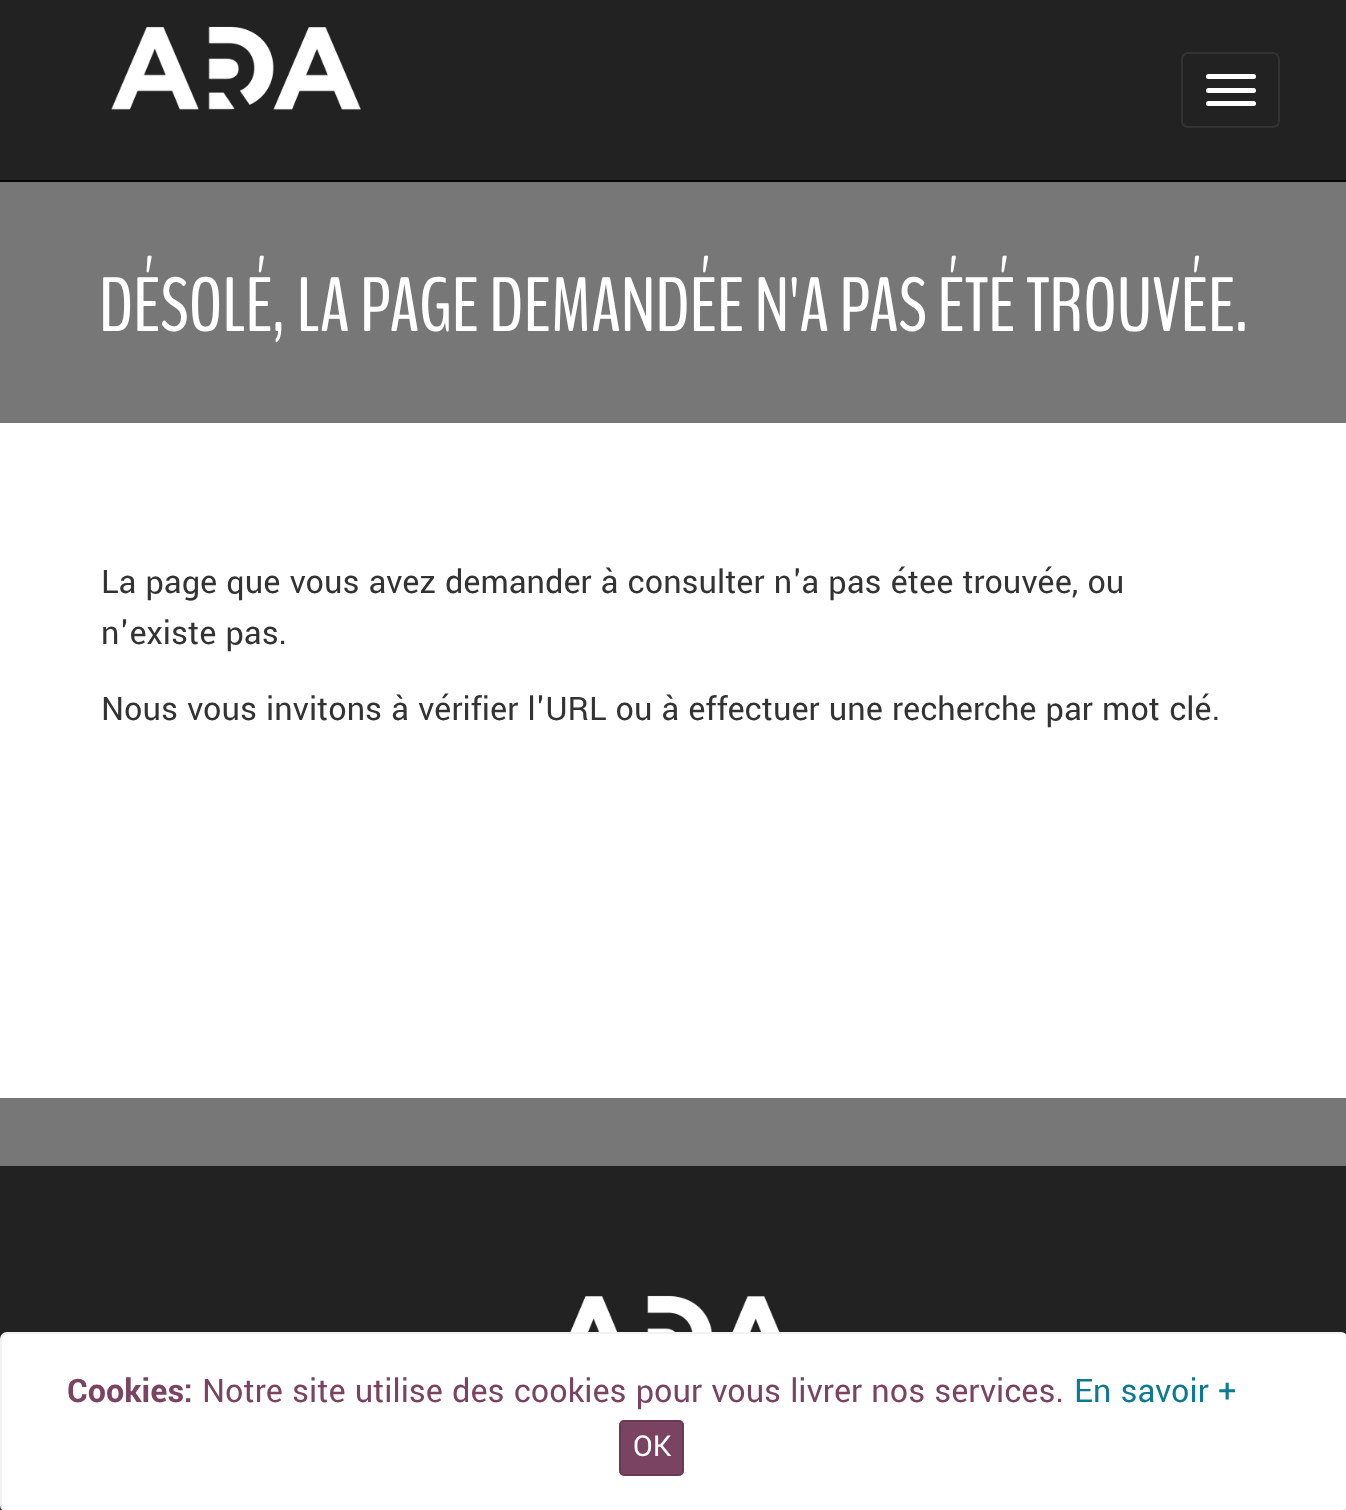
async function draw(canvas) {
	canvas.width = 1346;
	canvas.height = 1510;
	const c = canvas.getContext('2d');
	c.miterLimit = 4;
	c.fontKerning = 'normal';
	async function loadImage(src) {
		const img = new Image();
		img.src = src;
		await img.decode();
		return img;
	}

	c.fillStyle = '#777';
	c.fillRect(0, 0, 1346, 1510);
	c.fillStyle = '#222';
	c.fillRect(0, 0, 1346, 180);
	c.fillStyle = '#090808';
	c.fillRect(0, 180, 1346, 2);
	c.drawImage(await loadImage('img1.png'), 111, 26, 250, 84);
	c.beginPath();
	c.roundRect(1182, 53, 97, 74, 6);
	c.strokeStyle = '#333';
	c.lineWidth = 2;
	c.stroke();
	c.fillStyle = '#fff';
	c.beginPath();
	c.roundRect(1206, 74, 50, 5, 2.5);
	c.fill();
	c.beginPath();
	c.roundRect(1206, 88, 50, 5, 2.5);
	c.fill();
	c.beginPath();
	c.roundRect(1206, 101, 50, 5, 2.5);
	c.fill();
	c.font = '76.5px BenchNine';
	c.fillText('DÉSOLÉ, LA PAGE DEMANDÉE N\'A PAS ÉTÉ TROUVÉE.', 99, 331);
	c.fillRect(0, 423, 1346, 675);
	c.font = '36px Yantramanav';
	c.fillStyle = '#333';
	for (const [text, x, y] of [
		['La page que vous avez demander à consulter n\'a pas étee trouvée, ou', 101, 593],
		['n\'existe pas.', 101, 644],
		['Nous vous invitons à vérifier l\'URL ou à effectuer une recherche par mot clé.', 101, 720],
	]) {
		c.fillText(text, x, y);
	}
	c.fillStyle = '#222';
	c.fillRect(0, 1166, 1346, 344);
	c.drawImage(await loadImage('img2.png'), 570, 1295, 210, 37);
	c.fillStyle = '#fff';
	c.beginPath();
	c.roundRect(1, 1333, 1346, 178, 6);
	c.fill();
	c.strokeStyle = '#f2f2f2';
	c.stroke();
	c.font = 'bold 36px Yantramanav';
	c.fillStyle = '#794361';
	c.fillText('Cookies:', 67, 1402);
	c.font = '36px Yantramanav';
	c.fillText('Notre site utilise des cookies pour vous livrer nos services.', 202, 1402);
	c.fillStyle = '#0d7993';
	c.fillText('En savoir +', 1074, 1402);
	c.fillStyle = '#794361';
	c.beginPath();
	c.roundRect(620, 1421, 63, 54, 4);
	c.fill();
	c.strokeStyle = '#693a54';
	c.stroke();
	c.font = '32px Yantramanav';
	c.fillStyle = '#fff';
	c.fillText('OK', 633, 1456);
}

draw(document.querySelector('canvas'));
